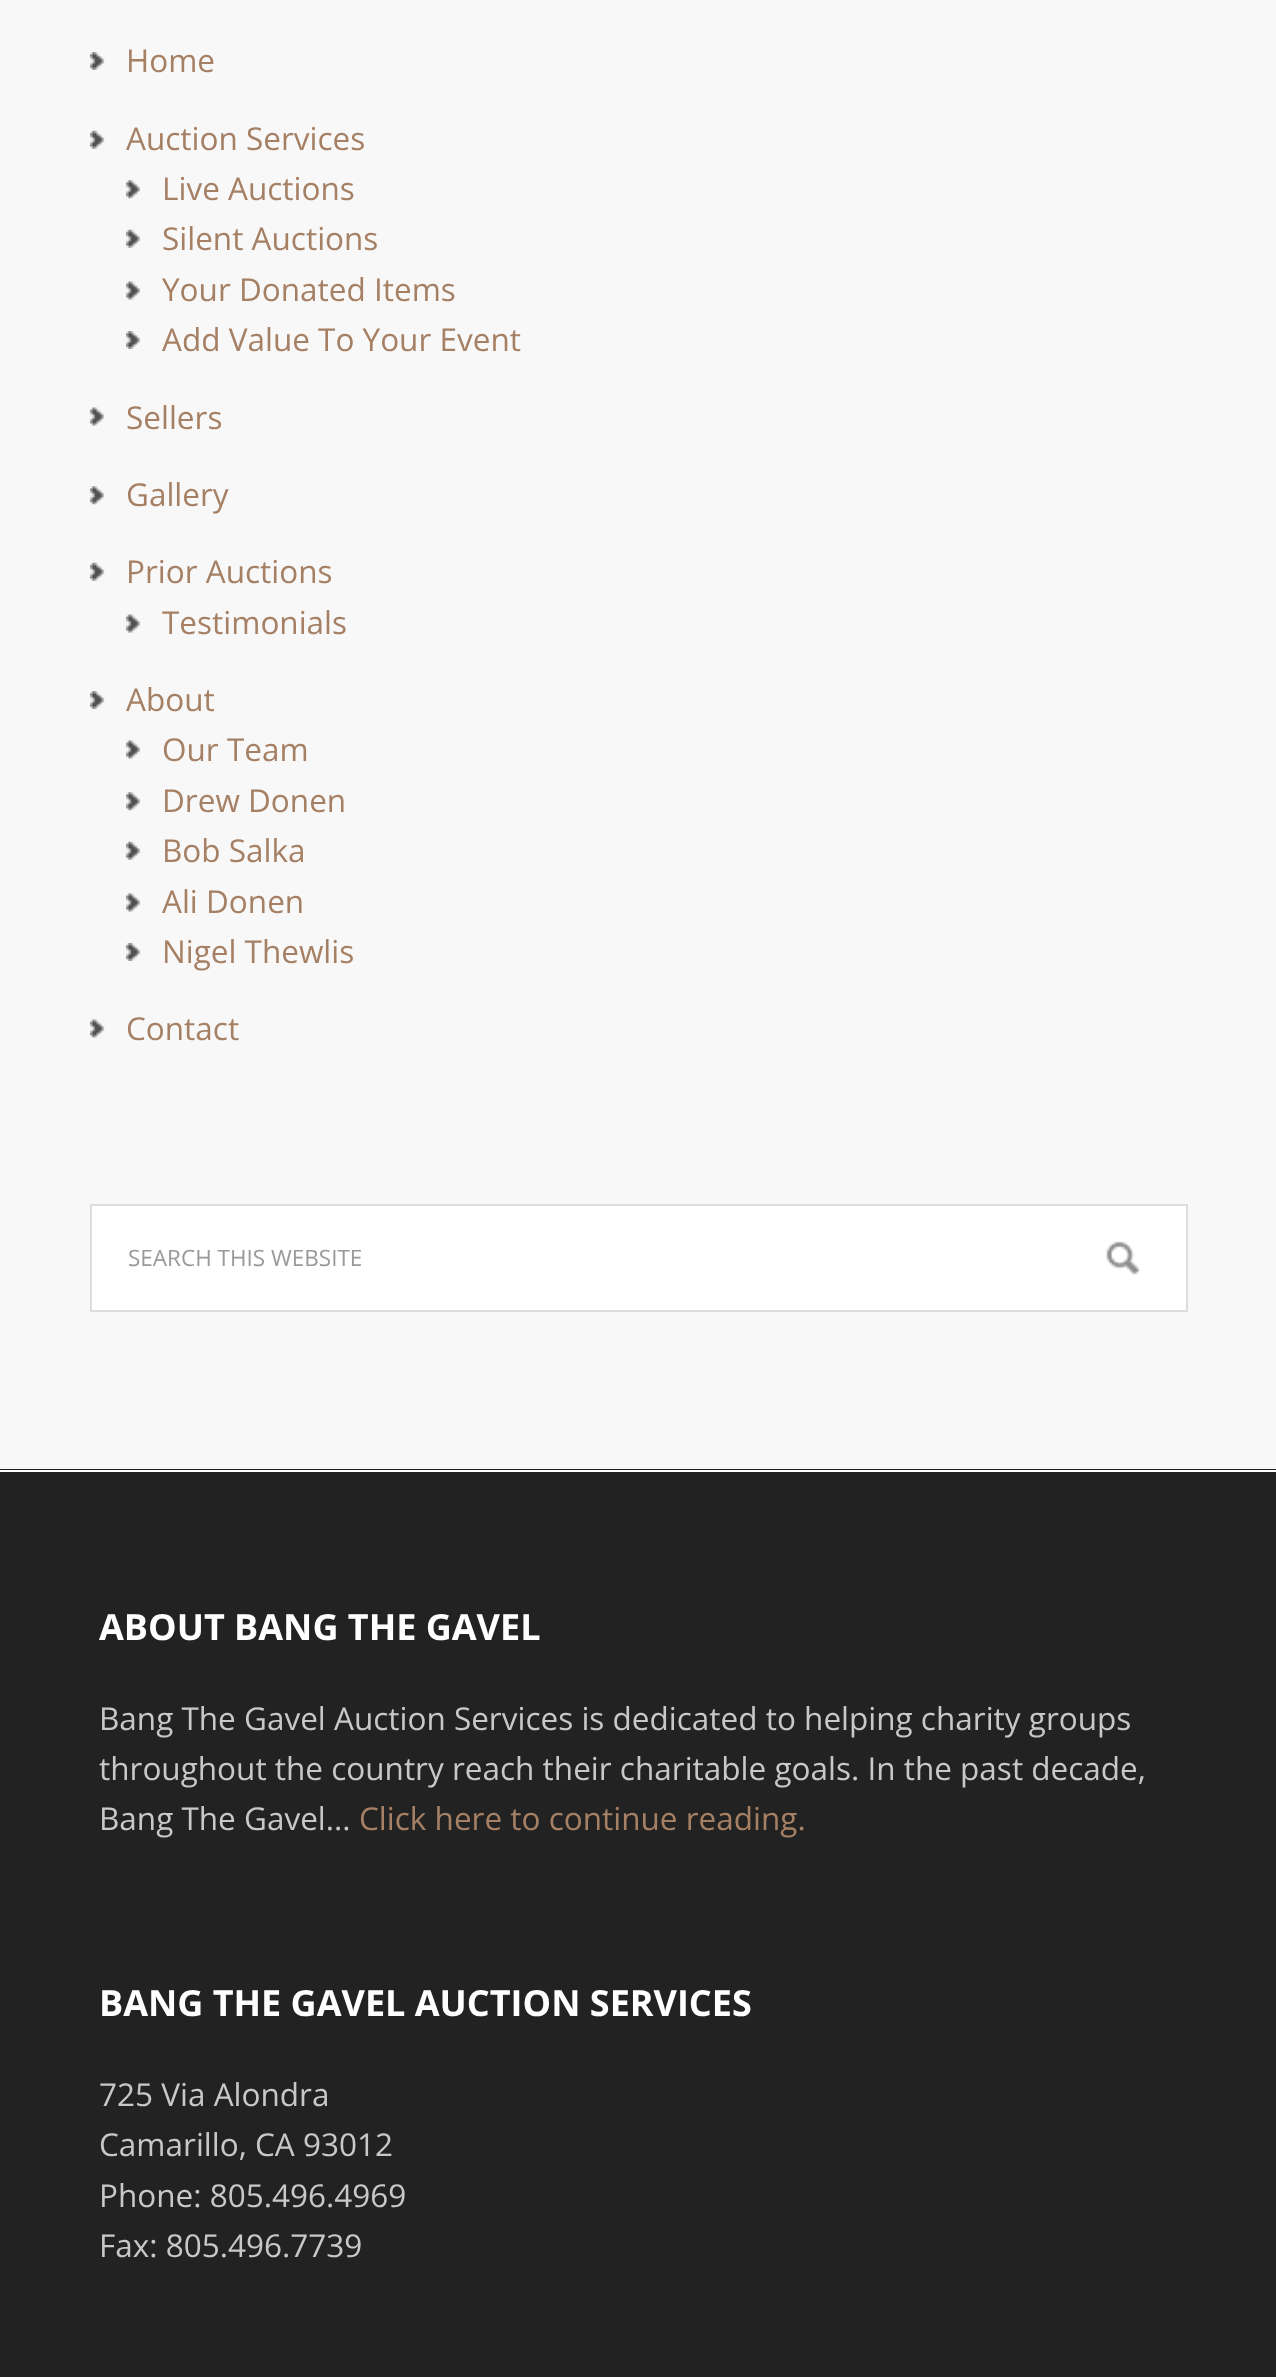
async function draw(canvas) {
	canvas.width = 1276;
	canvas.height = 2377;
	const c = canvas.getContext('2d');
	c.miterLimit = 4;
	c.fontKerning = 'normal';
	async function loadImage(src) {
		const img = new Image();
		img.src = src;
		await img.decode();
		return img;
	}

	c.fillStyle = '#222';
	c.fillRect(0, 0, 1276, 2377);
	c.strokeStyle = '#fff';
	c.lineWidth = 2;
	c.strokeRect(-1, -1, 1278, 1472);
	c.fillStyle = '#f8f8f8';
	c.fillRect(0, 0, 1276, 1469);
	c.drawImage(await loadImage('img1.png'), 90, 52, 15, 18);
	c.font = '31.5px Open Sans';
	c.fillStyle = '#a68064';
	c.fillText('Home', 126, 72);
	c.drawImage(await loadImage('img2.png'), 90, 130, 15, 19);
	c.fillText('Auction Services', 126, 150);
	c.drawImage(await loadImage('img3.png'), 126, 180, 15, 19);
	c.fillText('Live Auctions', 162, 200);
	c.drawImage(await loadImage('img2.png'), 126, 229, 15, 19);
	c.fillText('Silent Auctions', 162, 250);
	c.drawImage(await loadImage('img4.png'), 126, 281, 15, 19);
	c.fillText('Your Donated Items', 162, 301);
	c.drawImage(await loadImage('img1.png'), 126, 331, 15, 18);
	c.fillText('Add Value To Your Event', 162, 351);
	c.drawImage(await loadImage('img4.png'), 90, 407, 15, 19);
	c.fillText('Sellers', 126, 429);
	c.drawImage(await loadImage('img3.png'), 90, 486, 15, 19);
	c.fillText('Gallery', 126, 506);
	c.drawImage(await loadImage('img2.png'), 90, 562, 15, 19);
	c.fillText('Prior Auctions', 126, 583);
	c.drawImage(await loadImage('img4.png'), 126, 614, 15, 19);
	c.fillText('Testimonials', 162, 634);
	c.drawImage(await loadImage('img1.png'), 90, 691, 15, 18);
	c.fillText('About', 126, 711);
	c.drawImage(await loadImage('img4.png'), 126, 740, 15, 19);
	c.fillText('Our Team', 162, 761);
	c.drawImage(await loadImage('img3.png'), 126, 792, 15, 19);
	c.fillText('Drew Donen', 162, 812);
	c.drawImage(await loadImage('img2.png'), 126, 841, 15, 19);
	c.fillText('Bob Salka', 162, 862);
	c.drawImage(await loadImage('img4.png'), 126, 893, 15, 19);
	c.fillText('Ali Donen', 162, 913);
	c.drawImage(await loadImage('img1.png'), 126, 943, 15, 18);
	c.fillText('Nigel Thewlis', 162, 963);
	c.drawImage(await loadImage('img4.png'), 90, 1019, 15, 19);
	c.fillText('Contact', 126, 1040);
	c.fillStyle = '#fff';
	c.fillRect(92, 1206, 1094, 104);
	c.drawImage(await loadImage('img5.png'), 1106, 1241, 34, 34);
	c.strokeStyle = '#ddd';
	c.strokeRect(91, 1205, 1096, 106);
	c.font = '22.5px Open Sans';
	c.fillStyle = '#999';
	c.fillText('SEARCH THIS WEBSITE', 128, 1266);
	c.font = 'bold 36px Open Sans';
	c.fillStyle = '#fff';
	c.fillText('ABOUT BANG THE GAVEL', 99, 1640);
	c.font = '31.5px Open Sans';
	c.fillStyle = '#c8c8c8';
	for (const [text, x, y] of [
		['Bang The Gavel Auction Services is dedicated to helping charity groups', 99, 1730],
		['throughout the country reach their charitable goals. In the past decade,', 99, 1780],
		['Bang The Gavel...', 99, 1830],
	]) {
		c.fillText(text, x, y);
	}
	c.fillStyle = '#a68064';
	c.fillText('Click here to continue reading.', 359, 1830);
	c.font = 'bold 36px Open Sans';
	c.fillStyle = '#fff';
	c.fillText('BANG THE GAVEL AUCTION SERVICES', 99, 2016);
	c.font = '31.5px Open Sans';
	c.fillStyle = '#c8c8c8';
	for (const [text, x, y] of [
		['725 Via Alondra', 99, 2106],
		['Camarillo, CA 93012', 99, 2156],
		['Phone: 805.496.4969', 99, 2207],
		['Fax: 805.496.7739', 99, 2257],
	]) {
		c.fillText(text, x, y);
	}
}

draw(document.querySelector('canvas'));
